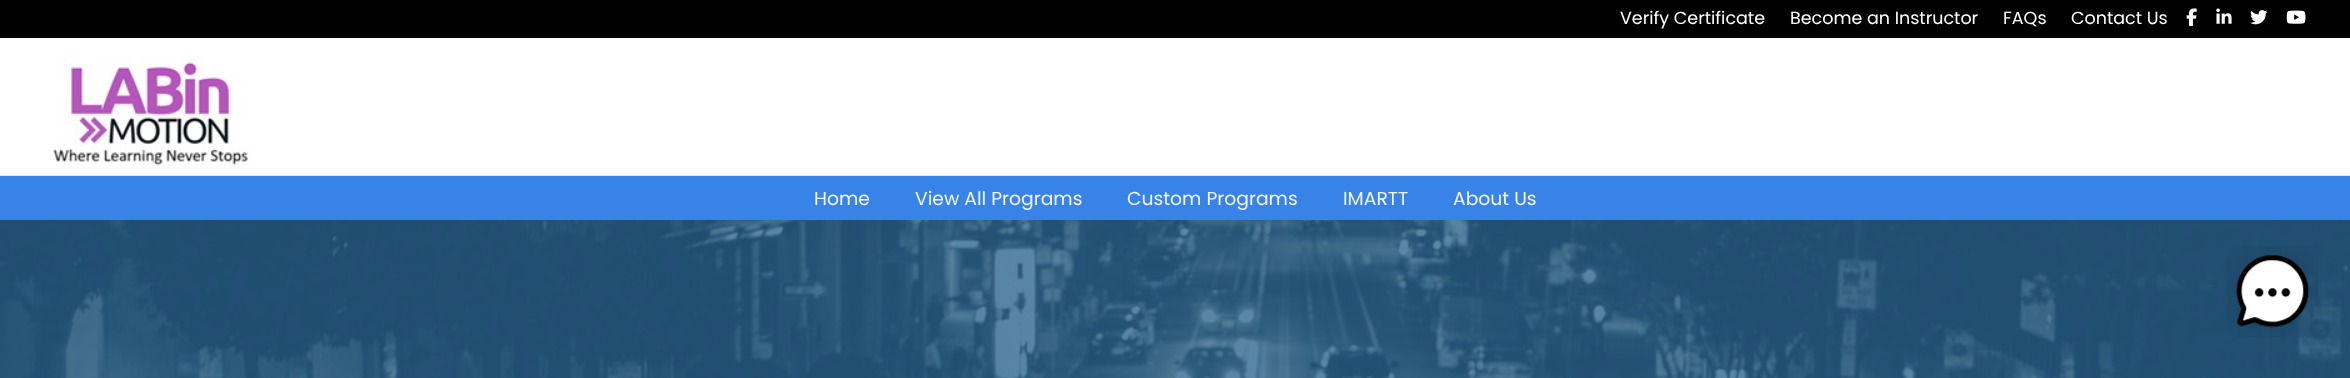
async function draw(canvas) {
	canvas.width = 2350;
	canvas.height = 378;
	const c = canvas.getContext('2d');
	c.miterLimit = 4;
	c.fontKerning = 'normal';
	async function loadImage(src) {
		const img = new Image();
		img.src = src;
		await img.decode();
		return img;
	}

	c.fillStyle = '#fff';
	c.fillRect(0, 0, 2350, 378);
	c.fillStyle = '#000';
	c.fillRect(0, 0, 2350, 38);
	c.font = '17.5px Poppins';
	c.fillStyle = '#fff';
	for (const [text, x, y] of [
		['Verify Certificate', 1620, 24],
		['Become an Instructor', 1790, 24],
		['FAQs', 2003, 24],
		['Contact Us', 2071, 24],
	]) {
		c.fillText(text, x, y);
	}
	c.drawImage(await loadImage('img1.png'), 2186, 8, 11, 18);
	c.drawImage(await loadImage('img2.png'), 2216, 8, 16, 16);
	c.drawImage(await loadImage('img3.png'), 2250, 10, 18, 15);
	c.drawImage(await loadImage('img4.png'), 2286, 10, 20, 14);
	c.drawImage(await loadImage('img5.png'), 53, 57, 199, 109);
	c.fillStyle = '#e6e6e6';
	c.fillRect(0, 175, 2350, 1);
	c.fillStyle = '#3783e7';
	c.fillRect(0, 176, 2350, 44);
	c.font = '18.75px Poppins';
	c.fillStyle = '#f4f4f4';
	for (const [text, x, y] of [
		['Home', 814, 205],
		['View All Programs', 915, 205],
		['Custom Programs', 1127, 205],
		['IMARTT', 1343, 205],
		['About Us', 1453, 205],
	]) {
		c.fillText(text, x, y);
	}
	c.fillStyle = '#23618e';
	c.fillRect(0, 220, 2350, 158);
	c.drawImage(await loadImage('img6.png'), 0, 220, 2350, 158);
	c.drawImage(await loadImage('img7.png'), 2227, 246, 91, 91);
}

draw(document.querySelector('canvas'));
